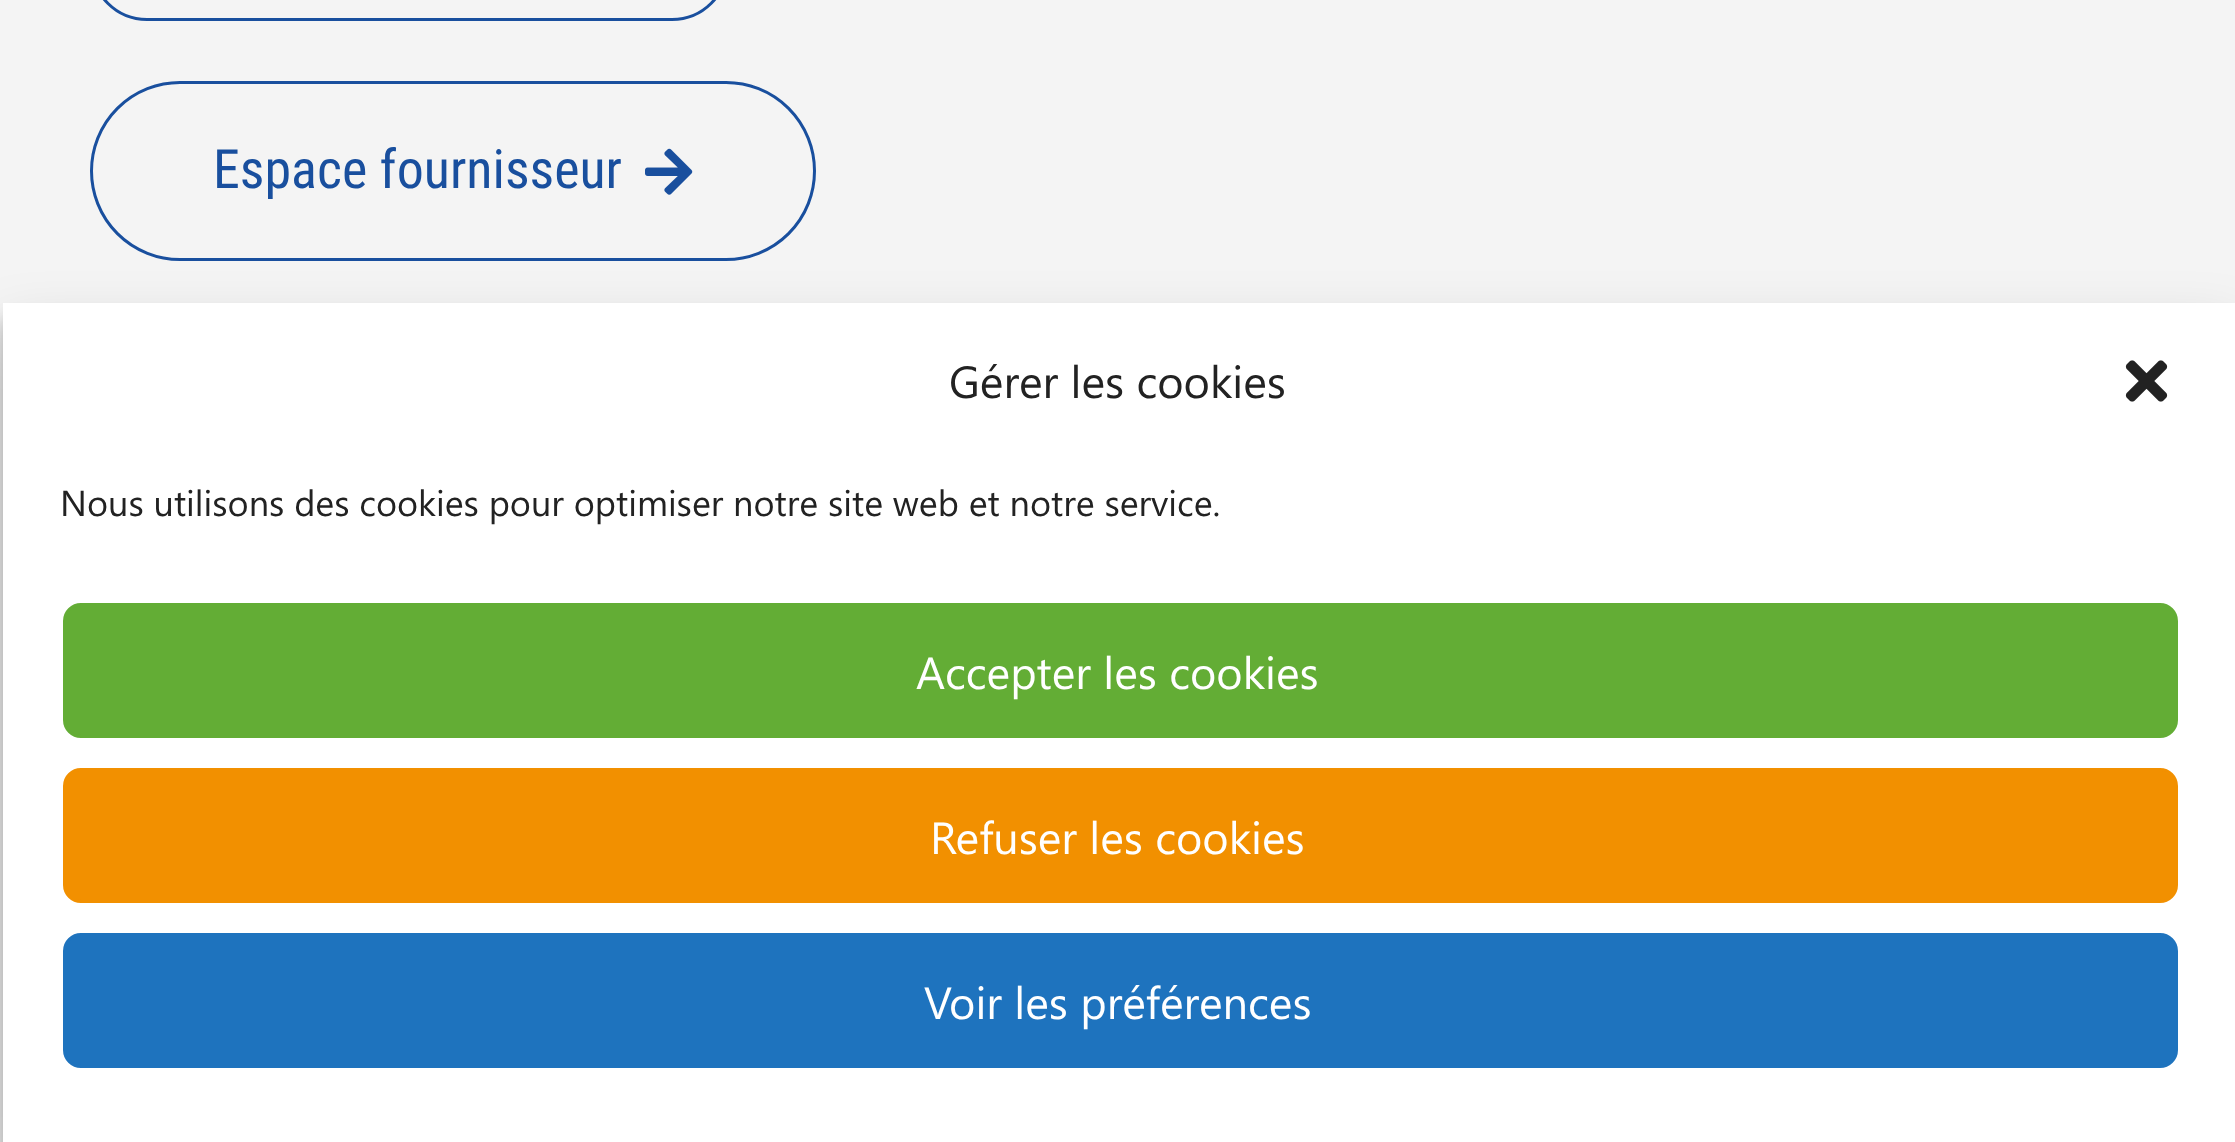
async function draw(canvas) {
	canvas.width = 2235;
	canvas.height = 1142;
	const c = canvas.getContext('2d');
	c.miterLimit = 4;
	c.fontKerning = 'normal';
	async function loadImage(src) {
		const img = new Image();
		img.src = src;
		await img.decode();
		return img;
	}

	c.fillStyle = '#f4f4f4';
	c.fillRect(0, 0, 2235, 1142);
	c.beginPath();
	c.roundRect(91.5, -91.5, 636, 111, 88.5);
	c.strokeStyle = '#194f9e';
	c.lineWidth = 3;
	c.stroke();
	c.beginPath();
	c.roundRect(91.5, 82.5, 723, 177, 88.5);
	c.stroke();
	c.font = '54px Roboto Condensed';
	c.fillStyle = '#194f9e';
	c.fillText('Espace fournisseur', 213, 188);
	c.drawImage(await loadImage('img1.png'), 645, 148, 48, 47);
	c.fillStyle = '#0000003b';
	c.filter = 'blur(9px)';
	c.beginPath();
	c.rect(3, 321, 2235, 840);
	c.fill();
	c.filter = 'none';
	c.fillStyle = '#00000030';
	c.filter = 'blur(30px)';
	c.beginPath();
	c.rect(3, 333, 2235, 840);
	c.fill();
	c.filter = 'none';
	c.fillStyle = '#fff';
	c.fillRect(3, 303, 2232, 839);
	c.font = '45px Segoe UI';
	c.fillStyle = '#222';
	c.fillText('Gérer les cookies', 949, 398);
	c.drawImage(await loadImage('img2.png'), 2125, 360, 43, 42);
	c.font = '36px Segoe UI';
	c.fillText('Nous utilisons des cookies pour optimiser notre site web et notre service.', 60, 516);
	c.fillStyle = '#63ad35';
	c.beginPath();
	c.roundRect(64.5, 604.5, 2112, 132, 16.5);
	c.fill();
	c.strokeStyle = '#63ad35';
	c.stroke();
	c.font = '45px Segoe UI';
	c.fillStyle = '#fff';
	c.fillText('Accepter les cookies', 916, 689);
	c.fillStyle = '#f29000';
	c.beginPath();
	c.roundRect(64.5, 769.5, 2112, 132, 16.5);
	c.fill();
	c.strokeStyle = '#f29000';
	c.stroke();
	c.fillStyle = '#fff';
	c.fillText('Refuser les cookies', 930, 854);
	c.fillStyle = '#1e73be';
	c.beginPath();
	c.roundRect(64.5, 934.5, 2112, 132, 16.5);
	c.fill();
	c.strokeStyle = '#1e73be';
	c.stroke();
	c.fillStyle = '#fff';
	c.fillText('Voir les préférences', 924, 1019);
}

draw(document.querySelector('canvas'));
